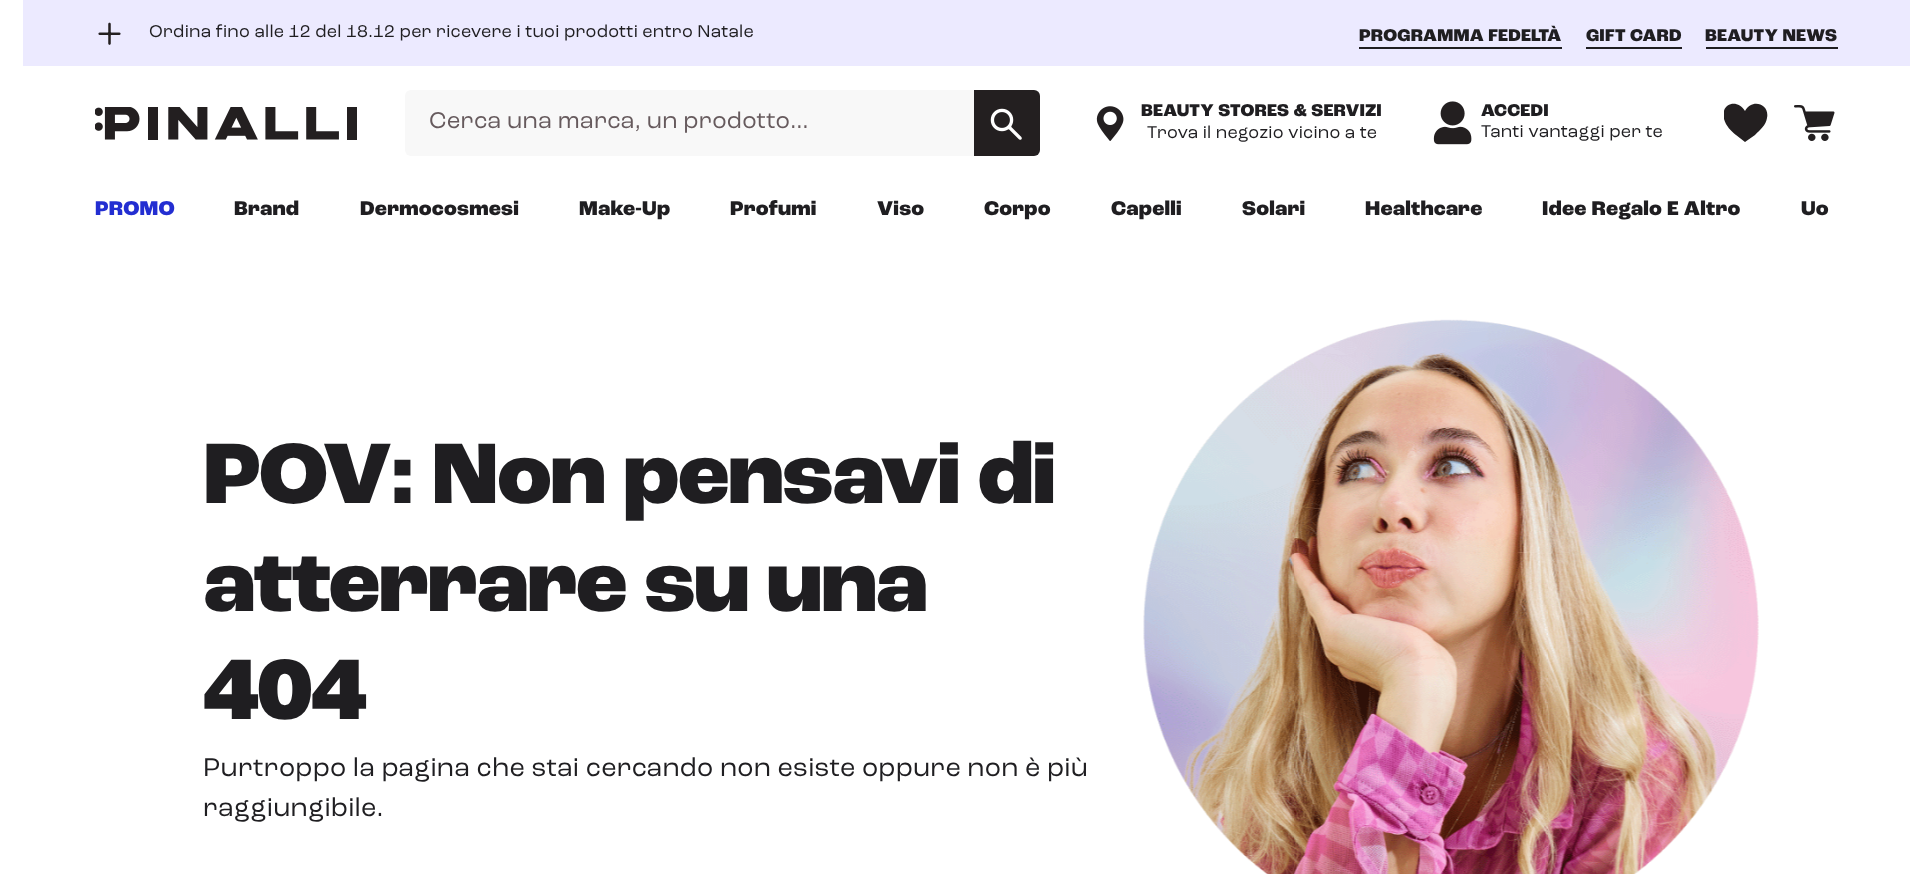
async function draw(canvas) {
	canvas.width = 1931;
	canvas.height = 874;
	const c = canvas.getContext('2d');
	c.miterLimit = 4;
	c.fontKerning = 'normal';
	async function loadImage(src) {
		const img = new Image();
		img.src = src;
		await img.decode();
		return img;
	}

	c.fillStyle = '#fff';
	c.fillRect(0, 0, 1931, 874);
	c.fillStyle = '#eceaff';
	c.fillRect(23, 0, 1887, 66);
	c.drawImage(await loadImage('img1.png'), 98, 22, 23, 23);
	c.letterSpacing = '0.23px';
	c.font = '18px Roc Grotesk';
	c.fillStyle = '#1f1e21';
	c.fillText('Ordina fino alle 12 del 18.12 per ricevere i tuoi prodotti entro Natale', 149, 37);
	c.font = '800 18px Roc Grotesk';
	c.fillText('PROGRAMMA FEDELTÀ', 1359, 41);
	c.fillRect(1359, 47, 203, 2);
	c.fillText('GIFT CARD', 1586, 41);
	c.fillRect(1586, 47, 96, 2);
	c.fillText('BEAUTY NEWS', 1705, 41);
	c.fillRect(1706, 47, 132, 2);
	c.drawImage(await loadImage('img2.png'), 95, 107, 262, 33);
	c.fillStyle = '#f8f8f8';
	c.beginPath();
	c.roundRect(405, 90, 635, 66, 6);
	c.fill();
	c.font = '24px Roc Grotesk';
	c.fillStyle = '#665a5d';
	c.fillText('Cerca una marca, un prodotto…', 429, 128);
	c.fillStyle = '#231f20';
	c.beginPath();
	c.roundRect(974, 90, 66, 66, [0, 6, 6, 0]);
	c.fill();
	c.drawImage(await loadImage('img3.png'), 990, 108, 32, 32);
	c.drawImage(await loadImage('img4.png'), 1096, 106, 28, 35);
	c.letterSpacing = '0.2px';
	c.font = '800 18px Roc Grotesk';
	c.fillStyle = '#1f1e21';
	c.fillText('BEAUTY STORES & SERVIZI', 1141, 116);
	c.font = '18px Roc Grotesk';
	c.fillText('Trova il negozio vicino a te', 1147, 138);
	c.drawImage(await loadImage('img5.png'), 1433, 101, 39, 44);
	c.font = '800 18px Roc Grotesk';
	c.fillText('ACCEDI', 1481, 116);
	c.font = '18px Roc Grotesk';
	c.fillText('Tanti vantaggi per te', 1481, 137);
	c.save();
	c.beginPath();
	c.rect(1724, 101, 45, 45);
	c.clip();
	c.fillStyle = '#231f20';
	c.beginPath();
	c.moveTo(1745, 111);
	c.bezierCurveTo(1752, 98, 1770, 104, 1767, 118);
	c.bezierCurveTo(1766, 125, 1760, 130, 1755, 135);
	c.lineTo(1745, 142);
	c.lineTo(1736, 135);
	c.bezierCurveTo(1731, 131, 1726, 126, 1724, 119);
	c.bezierCurveTo(1720, 104, 1737, 98, 1745, 111);
	c.closePath();
	c.fill();
	c.restore();
	c.drawImage(await loadImage('img6.png'), 1794, 105, 41, 36);
	c.letterSpacing = '0.23px';
	c.font = '800 21px Roc Grotesk';
	c.fillStyle = '#232ed1';
	c.fillText('PROMO', 95, 215);
	c.fillStyle = '#1f1e21';
	for (const [text, x, y] of [
		['Brand', 234, 215],
		['Dermocosmesi', 360, 215],
		['Make-Up', 579, 215],
		['Profumi', 730, 215],
		['Viso', 877, 215],
		['Corpo', 984, 215],
		['Capelli', 1111, 215],
		['Solari', 1242, 215],
		['Healthcare', 1365, 215],
		['Idee Regalo E Altro', 1542, 215],
		['Uo', 1801, 215],
	]) {
		c.fillText(text, x, y);
	}
	c.letterSpacing = '-1.75px';
	c.font = '800 90px Roc Grotesk';
	for (const [text, x, y] of [
		['POV: Non pensavi di', 203, 503],
		['atterrare su una', 203, 611],
		['404', 203, 719],
	]) {
		c.fillText(text, x, y);
	}
	c.letterSpacing = '0.23px';
	c.font = '27px Roc Grotesk';
	c.fillText('Purtroppo la pagina che stai cercando non esiste oppure non è più', 203, 776);
	c.fillText('raggiungibile.', 203, 816);
	c.drawImage(await loadImage('img7.png'), 1143, 319, 616, 555);
}

draw(document.querySelector('canvas'));
